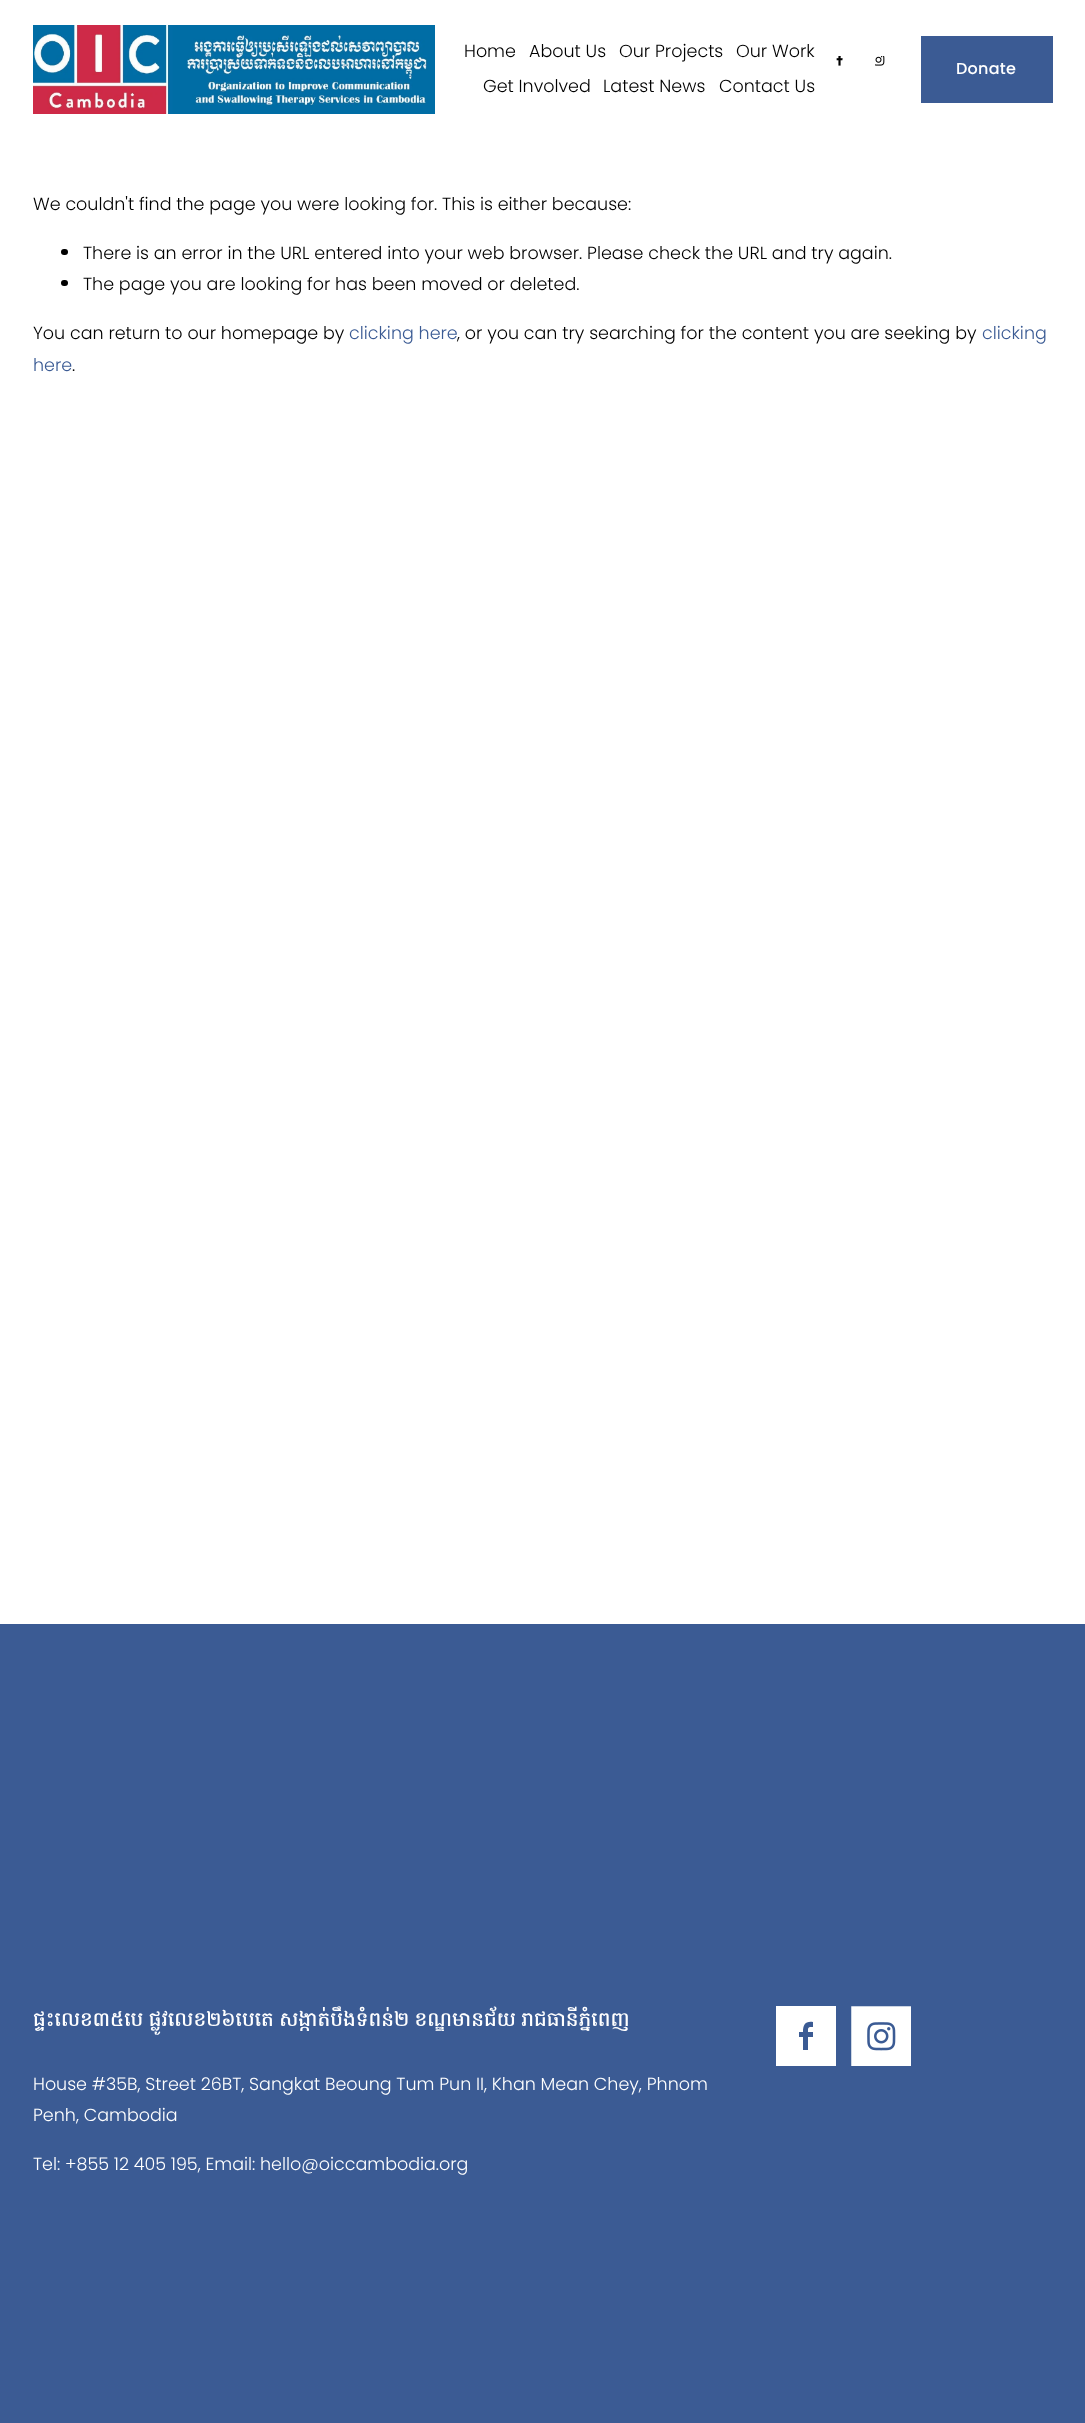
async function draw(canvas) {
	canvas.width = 1085;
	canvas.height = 2423;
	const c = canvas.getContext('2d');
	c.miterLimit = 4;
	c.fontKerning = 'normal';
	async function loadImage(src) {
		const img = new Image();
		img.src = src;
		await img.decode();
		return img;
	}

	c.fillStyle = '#fff';
	c.fillRect(0, 0, 1085, 2423);
	c.drawImage(await loadImage('img1.png'), 33, 25, 402, 89);
	c.font = '300 17.5px Poppins';
	c.fillStyle = '#000';
	for (const [text, x, y] of [
		['Home', 464, 57],
		['About Us', 529, 57],
		['Our Projects', 619, 57],
		['Our Work', 736, 57],
		['Get Involved', 483, 92],
		['Latest News', 603, 92],
		['Contact Us', 719, 92],
	]) {
		c.fillText(text, x, y);
	}
	c.drawImage(await loadImage('img2.png'), 836, 56, 7, 10);
	c.drawImage(await loadImage('img3.png'), 875, 56, 10, 10);
	c.fillStyle = '#3b5b94';
	c.fillRect(921, 36, 132, 67);
	c.letterSpacing = '0.25px';
	c.font = '500 16px Poppins';
	c.fillStyle = '#fff';
	c.fillText('Donate', 956, 74);
	c.letterSpacing = '0px';
	c.font = '300 17.5px Poppins';
	c.fillStyle = '#000';
	c.fillText('We couldn\'t find the page you were looking for. This is either because:', 33, 210);
	c.beginPath();
	c.roundRect(61, 249, 7, 6, 3);
	c.fill();
	c.fillText('There is an error in the URL entered into your web browser. Please check the URL and try again.', 83, 259);
	c.beginPath();
	c.roundRect(61, 280, 7, 6, 3);
	c.fill();
	c.fillText('The page you are looking for has been moved or deleted.', 83, 290);
	c.fillText('You can return to our homepage by', 33, 339);
	c.fillStyle = '#3b5b94';
	c.fillText('clicking here', 349, 339);
	c.fillStyle = '#000';
	c.fillText(', or you can try searching for the content you are seeking by', 457, 339);
	c.fillStyle = '#3b5b94';
	c.fillText('clicking', 982, 339);
	c.fillText('here', 33, 371);
	c.fillStyle = '#000';
	c.fillText('.', 72, 371);
	c.fillStyle = '#3b5b94';
	c.fillRect(0, 1624, 1085, 799);
	c.wordSpacing = '-1.5px';
	c.font = '500 20.1px Hanuman';
	c.fillStyle = '#fff';
	c.fillText('ផ្ទះលេខ៣៥បេ ផ្លូវលេខ២៦បេតេ សង្កាត់បឹងទំពន់២ ខណ្ឌមានជ័យ រាជធានីភ្នំពេញ', 33, 2026);
	c.wordSpacing = '0px';
	c.font = '300 17.5px Poppins';
	for (const [text, x, y] of [
		['House #35B, Street 26BT, Sangkat Beoung Tum Pun II, Khan Mean Chey, Phnom', 33, 2090],
		['Penh, Cambodia', 33, 2121],
		['Tel: +855 12 405 195, Email: hello@oiccambodia.org', 33, 2170],
	]) {
		c.fillText(text, x, y);
	}
	c.beginPath();
	c.moveTo(776, 2006);
	c.lineTo(776, 2066);
	c.lineTo(836, 2066);
	c.lineTo(836, 2006);
	c.closePath();
	c.moveTo(813, 2027);
	c.bezierCurveTo(808, 2027, 808, 2027, 808, 2032);
	c.lineTo(813, 2032);
	c.lineTo(813, 2037);
	c.lineTo(808, 2037);
	c.lineTo(808, 2050);
	c.lineTo(803, 2050);
	c.lineTo(803, 2037);
	c.lineTo(799, 2037);
	c.lineTo(799, 2032);
	c.lineTo(803, 2032);
	c.bezierCurveTo(803, 2025, 805, 2021, 813, 2022);
	c.closePath();
	c.fill();
	c.drawImage(await loadImage('img4.png'), 851, 2006, 60, 60);
}

draw(document.querySelector('canvas'));
